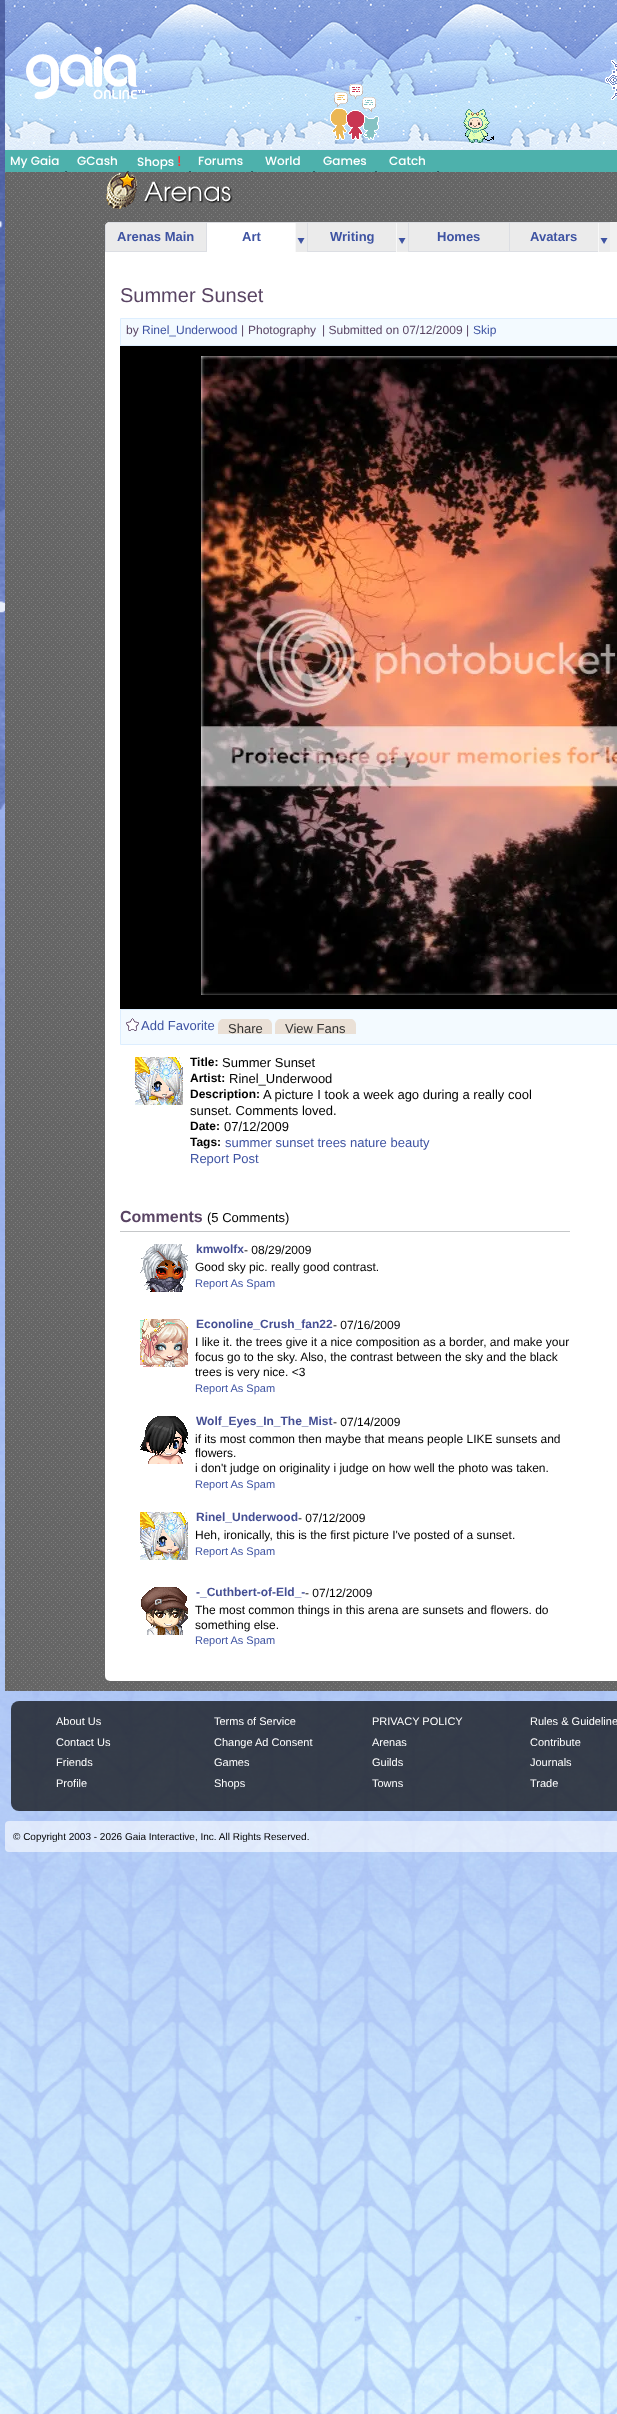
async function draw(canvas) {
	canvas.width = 617;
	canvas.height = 2414;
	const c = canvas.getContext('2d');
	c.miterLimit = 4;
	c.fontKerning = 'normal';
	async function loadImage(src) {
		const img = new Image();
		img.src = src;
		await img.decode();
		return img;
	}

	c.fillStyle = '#fff';
	c.fillRect(0, 0, 617, 2414);
	c.drawImage(await loadImage('img1.png'), 0, 0, 617, 2414);
	c.drawImage(await loadImage('img2.png'), 5, 0, 612, 150);
	c.drawImage(await loadImage('img3.png'), 5, 0, 612, 150);
	c.drawImage(await loadImage('img4.png'), 26, 46, 119, 54);
	c.drawImage(await loadImage('img5.png'), 605, 60, 12, 40);
	c.drawImage(await loadImage('img6.png'), 330, 84, 49, 56);
	c.drawImage(await loadImage('img7.png'), 463, 109, 31, 34);
	c.fillStyle = '#4db1ac';
	c.fillRect(5, 150, 612, 22);
	c.font = '500 12px Poppins';
	c.fillStyle = '#fff';
	for (const [text, x, y] of [
		['My Gaia', 10, 165],
		['GCash', 77, 165],
		['Shops', 137, 166],
	]) {
		c.fillText(text, x, y);
	}
	c.font = '500 14px Poppins';
	c.fillStyle = '#f33';
	c.fillText('!', 177, 166);
	c.font = '500 12px Poppins';
	c.fillStyle = '#fff';
	for (const [text, x, y] of [
		['Forums', 198, 165],
		['World', 265, 165],
		['Games', 323, 165],
		['Catch', 389, 165],
	]) {
		c.fillText(text, x, y);
	}
	for (const [x, y, w, h, color] of [
		[65, 171, 2, 1, '#265f62'],
		[127, 171, 2, 1, '#265f62'],
		[189, 171, 2, 1, '#265f62'],
		[251, 171, 2, 1, '#265f62'],
		[313, 171, 2, 1, '#265f62'],
		[375, 171, 2, 1, '#265f62'],
		[437, 171, 2, 1, '#265f62'],
	]) {
		c.fillStyle = color;
		c.fillRect(x, y, w, h);
	}
	c.drawImage(await loadImage('img8.png'), 5, 172, 612, 1519);
	c.drawImage(await loadImage('img9.png'), 106, 172, 127, 37);
	c.fillStyle = '#fff';
	c.beginPath();
	c.roundRect(105, 222, 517, 1459, 5);
	c.fill();
	c.fillStyle = '#ebebeb';
	c.beginPath();
	c.roundRect(105, 222, 102, 30, [5, 0, 0, 0]);
	c.fill();
	c.fillStyle = '#dcdee3';
	c.beginPath();
	c.moveTo(110, 222);
	c.lineTo(107, 223);
	c.lineTo(206, 223);
	c.lineTo(206, 251);
	c.lineTo(106, 251);
	c.lineTo(106, 224);
	c.bezierCurveTo(105, 225, 105, 226, 105, 227);
	c.lineTo(105, 252);
	c.lineTo(207, 252);
	c.lineTo(207, 222);
	c.closePath();
	c.fill();
	c.font = 'bold 13px Liberation Sans';
	c.fillStyle = '#3e53a2';
	c.fillText('Arenas Main', 117, 241);
	c.fillStyle = '#dcdee3';
	c.fillRect(206, 222, 102, 1);
	c.fillStyle = '#3e53a2';
	c.fillText('Art', 242, 241);
	c.drawImage(await loadImage('img10.png'), 295, 223, 12, 29);
	c.fillStyle = '#ebebeb';
	c.fillRect(308, 223, 88, 28);
	c.strokeStyle = '#dcdee3';
	c.strokeRect(307.5, 222.5, 101, 29);
	c.fillStyle = '#3e53a2';
	c.fillText('Writing', 330, 241);
	c.drawImage(await loadImage('img10.png'), 396, 223, 12, 29);
	c.fillStyle = '#ebebeb';
	c.beginPath();
	c.rect(408.5, 222.5, 101, 29);
	c.fill();
	c.stroke();
	c.fillStyle = '#3e53a2';
	c.fillText('Homes', 437, 241);
	for (const [x, y, w, h, color] of [
		[510, 223, 88, 28, '#ebebeb'],
		[509, 222, 101, 1, '#dcdee3'],
		[509, 251, 89, 1, '#dcdee3'],
	]) {
		c.fillStyle = color;
		c.fillRect(x, y, w, h);
	}
	c.fillStyle = '#3e53a2';
	c.fillText('Avatars', 530, 241);
	c.drawImage(await loadImage('img10.png'), 598, 223, 12, 29);
	c.fillStyle = '#f1f1f1';
	c.fillRect(610, 222, 7, 30);
	c.font = '20px Liberation Sans';
	c.fillStyle = '#5a4564';
	c.fillText('Summer Sunset', 120, 302);
	c.fillStyle = '#f3faff';
	c.beginPath();
	c.rect(120.5, 318.5, 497, 27);
	c.fill();
	c.strokeStyle = '#def';
	c.stroke();
	c.font = '12px Liberation Sans';
	c.fillStyle = '#5a4564';
	c.fillText('by', 126, 334);
	c.fillStyle = '#3e53a2';
	c.fillText('Rinel_Underwood', 142, 334);
	c.fillStyle = '#5a4564';
	for (const [text, x, y] of [
		['|', 241, 334],
		['Photography', 248, 334],
		['| Submitted on 07/12/2009 |', 322, 334],
	]) {
		c.fillText(text, x, y);
	}
	c.fillStyle = '#3e53a2';
	c.fillText('Skip', 473, 334);
	c.fillStyle = '#000';
	c.fillRect(120, 346, 497, 663);
	c.drawImage(await loadImage('img11.png'), 201, 356, 416, 639);
	c.fillStyle = '#f3faff';
	c.beginPath();
	c.rect(120.5, 1009.5, 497, 35);
	c.fill();
	c.stroke();
	c.drawImage(await loadImage('img12.png'), 126, 1018, 13, 13);
	c.font = '13px Liberation Sans';
	c.fillStyle = '#3e53a2';
	c.fillText('Add Favorite', 141, 1030);
	c.drawImage(await loadImage('img13.png'), 251, 1019, 21, 15);
	c.drawImage(await loadImage('img14.png'), 218, 1019, 33, 15);
	c.fillStyle = '#333';
	c.fillText('Share', 228, 1033);
	c.drawImage(await loadImage('img15.png'), 334, 1019, 22, 15);
	c.drawImage(await loadImage('img16.png'), 275, 1019, 59, 15);
	c.fillText('View Fans', 285, 1033);
	c.drawImage(await loadImage('img17.png'), 135, 1057, 48, 48);
	c.font = 'bold 12px Liberation Sans';
	c.fillStyle = '#000';
	c.fillText('Title:', 190, 1066);
	c.font = '13px Liberation Sans';
	c.fillText('Summer Sunset', 222, 1067);
	c.font = 'bold 12px Liberation Sans';
	c.fillText('Artist:', 190, 1082);
	c.font = '13px Liberation Sans';
	c.fillText('Rinel_Underwood', 229, 1083);
	c.font = 'bold 12px Liberation Sans';
	c.fillText('Description:', 190, 1098);
	c.font = '13px Liberation Sans';
	c.fillText('A picture I took a week ago during a really cool', 263, 1099);
	c.fillText('sunset. Comments loved.', 190, 1115);
	c.font = 'bold 12px Liberation Sans';
	c.fillText('Date:', 190, 1130);
	c.font = '13px Liberation Sans';
	c.fillText('07/12/2009', 224, 1131);
	c.font = 'bold 12px Liberation Sans';
	c.fillText('Tags:', 190, 1146);
	c.font = '13px Liberation Sans';
	c.fillStyle = '#3e53a2';
	c.fillText('summer sunset trees nature beauty', 225, 1147);
	c.fillText('Report Post', 190, 1163);
	c.font = 'bold 16px Liberation Sans';
	c.fillStyle = '#5a4564';
	c.fillText('Comments', 120, 1222);
	c.font = '13px Liberation Sans';
	c.fillStyle = '#000';
	c.fillText('(5 Comments)', 207, 1222);
	c.fillStyle = '#c5c7c9';
	c.fillRect(120, 1231, 450, 1);
	c.drawImage(await loadImage('img18.png'), 140, 1244, 48, 48);
	c.font = 'bold 12px Liberation Sans';
	c.fillStyle = '#454f94';
	c.fillText('kmwolfx', 196, 1253);
	c.font = '12px Liberation Sans';
	c.fillStyle = '#000';
	c.fillText('- 08/29/2009', 244, 1254);
	c.fillText('Good sky pic. really good contrast.', 195, 1271);
	c.font = '11px Liberation Sans';
	c.fillStyle = '#3e53a2';
	c.fillText('Report As Spam', 195, 1287);
	c.drawImage(await loadImage('img19.png'), 140, 1319, 48, 48);
	c.font = 'bold 12px Liberation Sans';
	c.fillStyle = '#454f94';
	c.fillText('Econoline_Crush_fan22', 196, 1328);
	c.font = '12px Liberation Sans';
	c.fillStyle = '#000';
	for (const [text, x, y] of [
		['- 07/16/2009', 333, 1329],
		['I like it. the trees give it a nice composition as a border, and make your', 195, 1346],
		['focus go to the sky. Also, the contrast between the sky and the black', 195, 1361],
		['trees is very nice. <3', 195, 1376],
	]) {
		c.fillText(text, x, y);
	}
	c.font = '11px Liberation Sans';
	c.fillStyle = '#3e53a2';
	c.fillText('Report As Spam', 195, 1392);
	c.drawImage(await loadImage('img20.png'), 140, 1416, 48, 48);
	c.font = 'bold 12px Liberation Sans';
	c.fillStyle = '#454f94';
	c.fillText('Wolf_Eyes_In_The_Mist', 196, 1425);
	c.font = '12px Liberation Sans';
	c.fillStyle = '#000';
	for (const [text, x, y] of [
		['- 07/14/2009', 333, 1426],
		['if its most common then maybe that means people LIKE sunsets and', 195, 1443],
		['flowers.', 195, 1457],
		['i don\'t judge on originality i judge on how well the photo was taken.', 195, 1472],
	]) {
		c.fillText(text, x, y);
	}
	c.font = '11px Liberation Sans';
	c.fillStyle = '#3e53a2';
	c.fillText('Report As Spam', 195, 1488);
	c.drawImage(await loadImage('img17.png'), 140, 1512, 48, 48);
	c.font = 'bold 12px Liberation Sans';
	c.fillStyle = '#454f94';
	c.fillText('Rinel_Underwood', 196, 1521);
	c.font = '12px Liberation Sans';
	c.fillStyle = '#000';
	c.fillText('- 07/12/2009', 298, 1522);
	c.fillText('Heh, ironically, this is the first picture I\'ve posted of a sunset.', 195, 1539);
	c.font = '11px Liberation Sans';
	c.fillStyle = '#3e53a2';
	c.fillText('Report As Spam', 195, 1555);
	c.drawImage(await loadImage('img21.png'), 141, 1587, 47, 48);
	c.font = 'bold 12px Liberation Sans';
	c.fillStyle = '#454f94';
	c.fillText('-_Cuthbert-of-Eld_-', 196, 1596);
	c.font = '12px Liberation Sans';
	c.fillStyle = '#000';
	for (const [text, x, y] of [
		['- 07/12/2009', 305, 1597],
		['The most common things in this arena are sunsets and flowers. do', 195, 1614],
		['something else.', 195, 1629],
	]) {
		c.fillText(text, x, y);
	}
	c.font = '11px Liberation Sans';
	c.fillStyle = '#3e53a2';
	c.fillText('Report As Spam', 195, 1644);
	c.fillStyle = '#000000b3';
	c.beginPath();
	c.roundRect(11, 1701, 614, 110, 8);
	c.fill();
	c.fillStyle = '#fff';
	for (const [text, x, y] of [
		['About Us', 56, 1725],
		['Terms of Service', 214, 1725],
		['PRIVACY POLICY', 372, 1725],
		['Rules & Guideline', 530, 1725],
		['Contact Us', 56, 1746],
		['Change Ad Consent', 214, 1746],
		['Arenas', 372, 1746],
		['Contribute', 530, 1746],
		['Friends', 56, 1766],
		['Games', 214, 1766],
		['Guilds', 372, 1766],
		['Journals', 530, 1766],
		['Profile', 56, 1787],
		['Shops', 214, 1787],
		['Towns', 372, 1787],
		['Trade', 530, 1787],
	]) {
		c.fillText(text, x, y);
	}
	c.fillStyle = '#ffffff99';
	c.beginPath();
	c.roundRect(5, 1821, 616, 31, 4);
	c.fill();
	c.font = '10px Liberation Sans';
	c.fillStyle = '#000';
	c.fillText('© Copyright 2003 - 2026 Gaia Interactive, Inc. All Rights Reserved.', 13, 1840);
}

draw(document.querySelector('canvas'));
